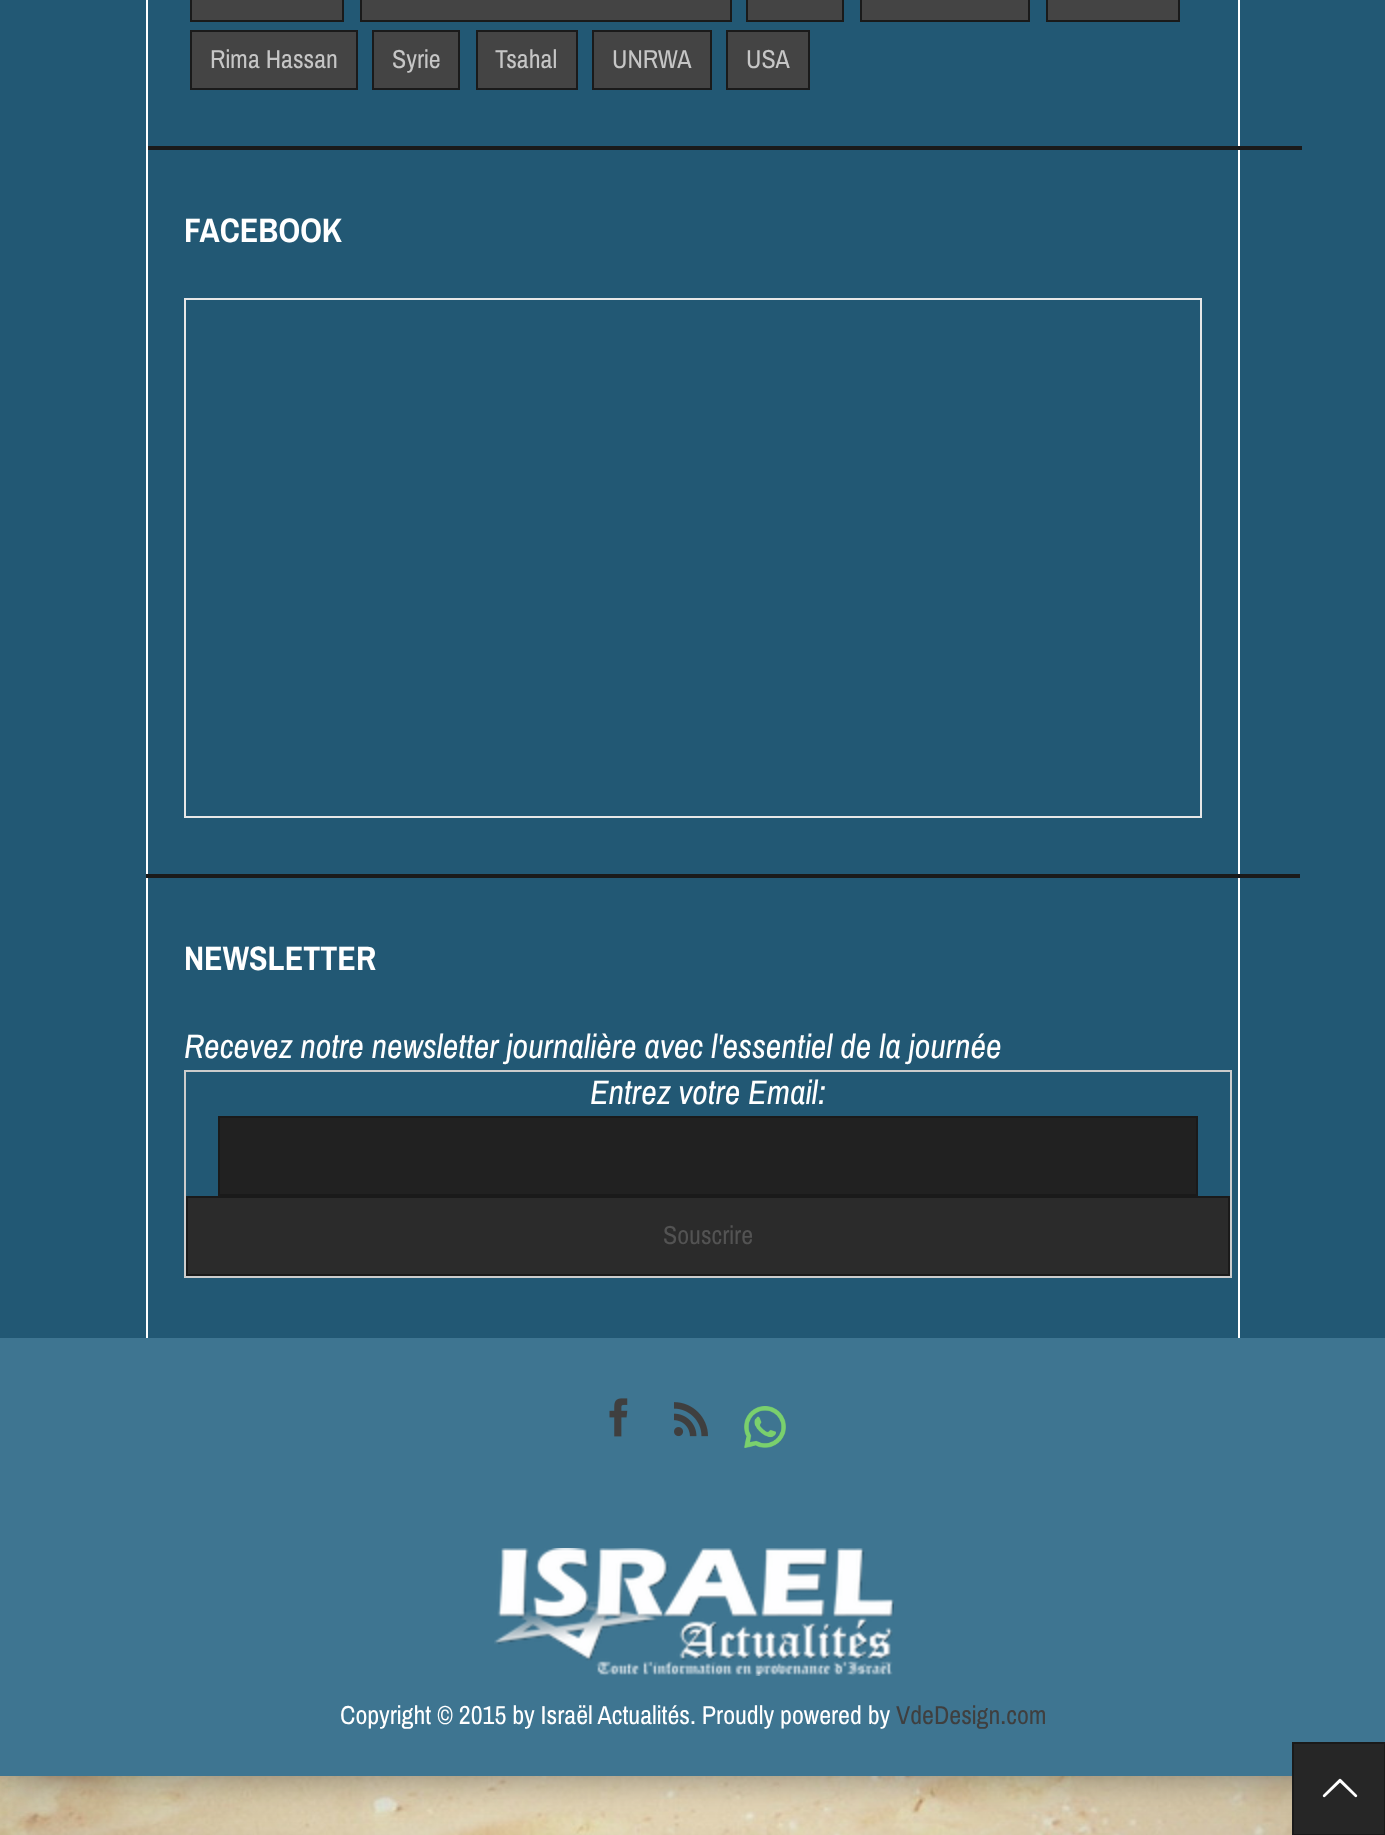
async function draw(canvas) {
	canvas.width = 1385;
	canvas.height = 1835;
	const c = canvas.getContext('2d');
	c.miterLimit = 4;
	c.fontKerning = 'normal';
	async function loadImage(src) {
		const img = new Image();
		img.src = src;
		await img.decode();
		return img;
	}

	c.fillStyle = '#fff';
	c.fillRect(0, 0, 1385, 1835);
	c.drawImage(await loadImage('img1.png'), 0, 1776, 1292, 59);
	c.fillStyle = '#00000070';
	c.filter = 'blur(21px)';
	c.beginPath();
	c.rect(0, -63, 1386, 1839);
	c.fill();
	c.filter = 'none';
	for (const [x, y, w, h, color] of [
		[0, 0, 1385, 1338, '#225874'],
		[1238, 0, 2, 1338, '#fff'],
		[146, 0, 2, 1338, '#fff'],
	]) {
		c.fillStyle = color;
		c.fillRect(x, y, w, h);
	}
	c.fillStyle = '#444';
	c.beginPath();
	c.rect(191, -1, 152, 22);
	c.fill();
	c.strokeStyle = '#1a1a1a';
	c.lineWidth = 2;
	c.stroke();
	c.beginPath();
	c.rect(361, -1, 370, 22);
	c.fill();
	c.stroke();
	c.beginPath();
	c.rect(747, -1, 96, 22);
	c.fill();
	c.stroke();
	c.beginPath();
	c.rect(861, -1, 168, 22);
	c.fill();
	c.stroke();
	c.beginPath();
	c.rect(1047, -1, 132, 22);
	c.fill();
	c.stroke();
	c.beginPath();
	c.rect(191, 31, 166, 58);
	c.fill();
	c.stroke();
	c.font = '26px Archivo Narrow';
	c.fillStyle = '#c6c6c6';
	c.fillText('Rima Hassan', 210, 68);
	c.fillStyle = '#444';
	c.beginPath();
	c.rect(373, 31, 86, 58);
	c.fill();
	c.stroke();
	c.fillStyle = '#c6c6c6';
	c.fillText('Syrie', 392, 68);
	c.fillStyle = '#444';
	c.beginPath();
	c.rect(477, 31, 100, 58);
	c.fill();
	c.stroke();
	c.fillStyle = '#c6c6c6';
	c.fillText('Tsahal', 495, 68);
	c.fillStyle = '#444';
	c.beginPath();
	c.rect(593, 31, 118, 58);
	c.fill();
	c.stroke();
	c.fillStyle = '#c6c6c6';
	c.fillText('UNRWA', 612, 68);
	c.fillStyle = '#444';
	c.beginPath();
	c.rect(727, 31, 82, 58);
	c.fill();
	c.stroke();
	c.fillStyle = '#c6c6c6';
	c.fillText('USA', 746, 68);
	c.fillStyle = '#1a1a1a';
	c.fillRect(148, 146, 1154, 4);
	c.font = 'bold 34px Archivo Narrow';
	c.fillStyle = '#fff';
	c.fillText('FACEBOOK', 184, 242);
	c.strokeStyle = '#e7e7e7';
	c.strokeRect(185, 299, 1016, 518);
	c.fillStyle = '#1a1a1a';
	c.fillRect(146, 874, 1154, 4);
	c.fillStyle = '#fff';
	c.fillText('NEWSLETTER', 184, 970);
	c.font = 'italic 34px Archivo Narrow';
	c.fillText('Recevez notre newsletter journalière avec l\'essentiel de la journée', 184, 1058);
	c.strokeStyle = '#ccc';
	c.strokeRect(185, 1071, 1046, 206);
	c.fillText('Entrez votre Email:', 590, 1104);
	c.fillStyle = '#212121';
	c.beginPath();
	c.rect(219, 1117, 978, 78);
	c.fill();
	c.strokeStyle = '#1a1a1a';
	c.stroke();
	c.fillStyle = '#2b2b2b';
	c.beginPath();
	c.rect(187, 1197, 1042, 78);
	c.fill();
	c.stroke();
	c.font = '26px Archivo Narrow';
	c.fillStyle = '#535353';
	c.fillText('Souscrire', 663, 1244);
	c.fillStyle = '#3e7591';
	c.fillRect(0, 1338, 1385, 438);
	c.drawImage(await loadImage('img2.png'), 609, 1398, 19, 39);
	c.drawImage(await loadImage('img3.png'), 674, 1402, 34, 35);
	c.drawImage(await loadImage('img4.png'), 744, 1406, 42, 42);
	c.drawImage(await loadImage('img5.png'), 494, 1548, 400, 128);
	c.fillStyle = '#fff';
	c.fillText('Copyright © 2015 by Israël Actualités. Proudly powered by', 340, 1724);
	c.fillStyle = '#3f3f3f';
	c.fillText('VdeDesign.com', 896, 1724);
	c.fillStyle = '#262626';
	c.beginPath();
	c.rect(1293, 1743, 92, 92);
	c.fill();
	c.stroke();
	c.drawImage(await loadImage('img6.png'), 1322, 1778, 36, 20);
}

draw(document.querySelector('canvas'));
